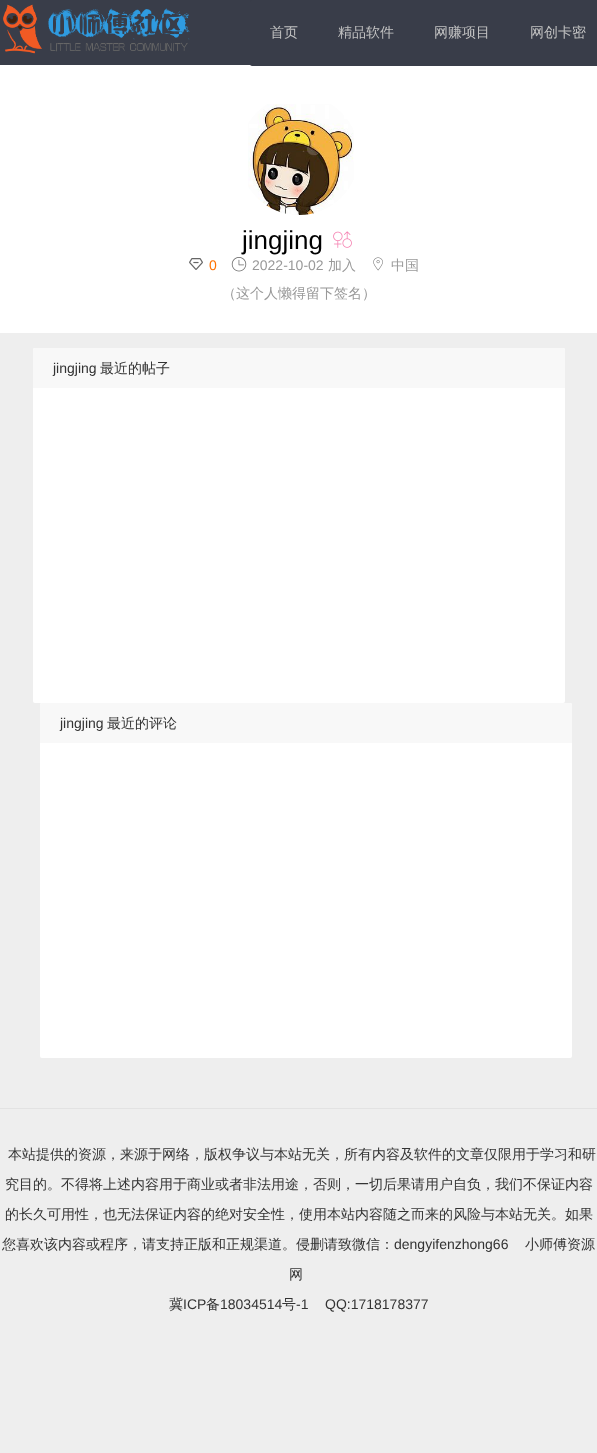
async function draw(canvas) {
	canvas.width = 597;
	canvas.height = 1453;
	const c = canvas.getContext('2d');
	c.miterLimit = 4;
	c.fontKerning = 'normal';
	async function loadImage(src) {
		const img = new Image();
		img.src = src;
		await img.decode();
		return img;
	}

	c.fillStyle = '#eee';
	c.fillRect(0, 0, 597, 1453);
	c.fillStyle = '#393d49';
	c.fillRect(0, 0, 252, 65);
	c.drawImage(await loadImage('img1.png'), 3, 4, 187, 50);
	c.fillStyle = '#fff';
	c.fillRect(0, 65, 597, 268);
	c.fillStyle = '#393d49';
	c.beginPath();
	c.roundRect(250, 0, 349, 66, 2);
	c.fill();
	c.font = '500 14px WenQuanYi Zen Hei';
	c.fillStyle = '#c2c2c2';
	for (const [text, x, y] of [
		['首页', 270, 37],
		['精品软件', 338, 37],
		['网赚项目', 434, 37],
		['网创卡密', 530, 37],
	]) {
		c.fillText(text, x, y);
	}
	c.drawImage(await loadImage('img2.png'), 248, 104, 106, 111);
	c.font = '26px Liberation Sans';
	c.fillStyle = '#000';
	c.fillText('jingjing', 242, 249);
	c.drawImage(await loadImage('img3.png'), 333, 231, 19, 17);
	c.drawImage(await loadImage('img4.png'), 189, 258, 14, 12);
	c.font = '14px Liberation Sans';
	c.fillStyle = '#ff7200';
	c.fillText('0', 209, 270);
	c.drawImage(await loadImage('img5.png'), 231, 257, 16, 15);
	c.fillStyle = '#999';
	c.fillText('2022-10-02', 252, 270);
	c.font = '500 14px WenQuanYi Zen Hei';
	c.fillText('加入', 328, 270);
	c.drawImage(await loadImage('img6.png'), 373, 257, 10, 14);
	c.fillText('中国', 391, 270);
	c.fillText('（这个人懒得留下签名）', 222, 298);
	c.fillStyle = '#fff';
	c.beginPath();
	c.roundRect(33, 348, 532, 355, 2);
	c.fill();
	c.fillStyle = '#f8f8f8';
	c.beginPath();
	c.roundRect(33, 348, 532, 40, [2, 2, 0, 0]);
	c.fill();
	c.font = '14px Liberation Sans';
	c.fillStyle = '#333';
	c.fillText('jingjing', 53, 373);
	c.font = '500 14px WenQuanYi Zen Hei';
	c.fillText('最近的帖子', 100, 373);
	c.fillStyle = '#fff';
	c.beginPath();
	c.roundRect(40, 703, 532, 355, 2);
	c.fill();
	c.fillStyle = '#f8f8f8';
	c.beginPath();
	c.roundRect(40, 703, 532, 40, [2, 2, 0, 0]);
	c.fill();
	c.font = '14px Liberation Sans';
	c.fillStyle = '#333';
	c.fillText('jingjing', 60, 728);
	c.font = '500 14px WenQuanYi Zen Hei';
	c.fillText('最近的评论', 107, 728);
	c.fillStyle = '#e2e2e2';
	c.fillRect(0, 1108, 597, 1);
	c.fillStyle = '#333';
	for (const [text, x, y] of [
		['本站提供的资源，来源于网络，版权争议与本站无关，所有内容及软件的文章仅限用于学习和研', 8, 1159],
		['究目的。不得将上述内容用于商业或者非法用途，否则，一切后果请用户自负，我们不保证内容', 5, 1189],
		['的长久可用性，也无法保证内容的绝对安全性，使用本站内容随之而来的风险与本站无关。如果', 5, 1219],
		['您喜欢该内容或程序，请支持正版和正规渠道。侵删请致微信：', 2, 1249],
	]) {
		c.fillText(text, x, y);
	}
	c.font = '14px Liberation Sans';
	c.fillText('dengyifenzhong66', 394, 1249);
	c.font = '500 14px WenQuanYi Zen Hei';
	for (const [text, x, y] of [
		['小师傅资源', 525, 1249],
		['网', 289, 1279],
		['冀', 169, 1309],
	]) {
		c.fillText(text, x, y);
	}
	c.font = '14px Liberation Sans';
	c.fillText('ICP', 183, 1309);
	c.font = '500 14px WenQuanYi Zen Hei';
	c.fillText('备', 206, 1309);
	c.font = '14px Liberation Sans';
	c.fillText('18034514', 220, 1309);
	c.font = '500 14px WenQuanYi Zen Hei';
	c.fillText('号', 282, 1309);
	c.font = '14px Liberation Sans';
	c.fillText('-1', 296, 1309);
	c.fillText('QQ:1718178377', 325, 1309);
}

draw(document.querySelector('canvas'));
